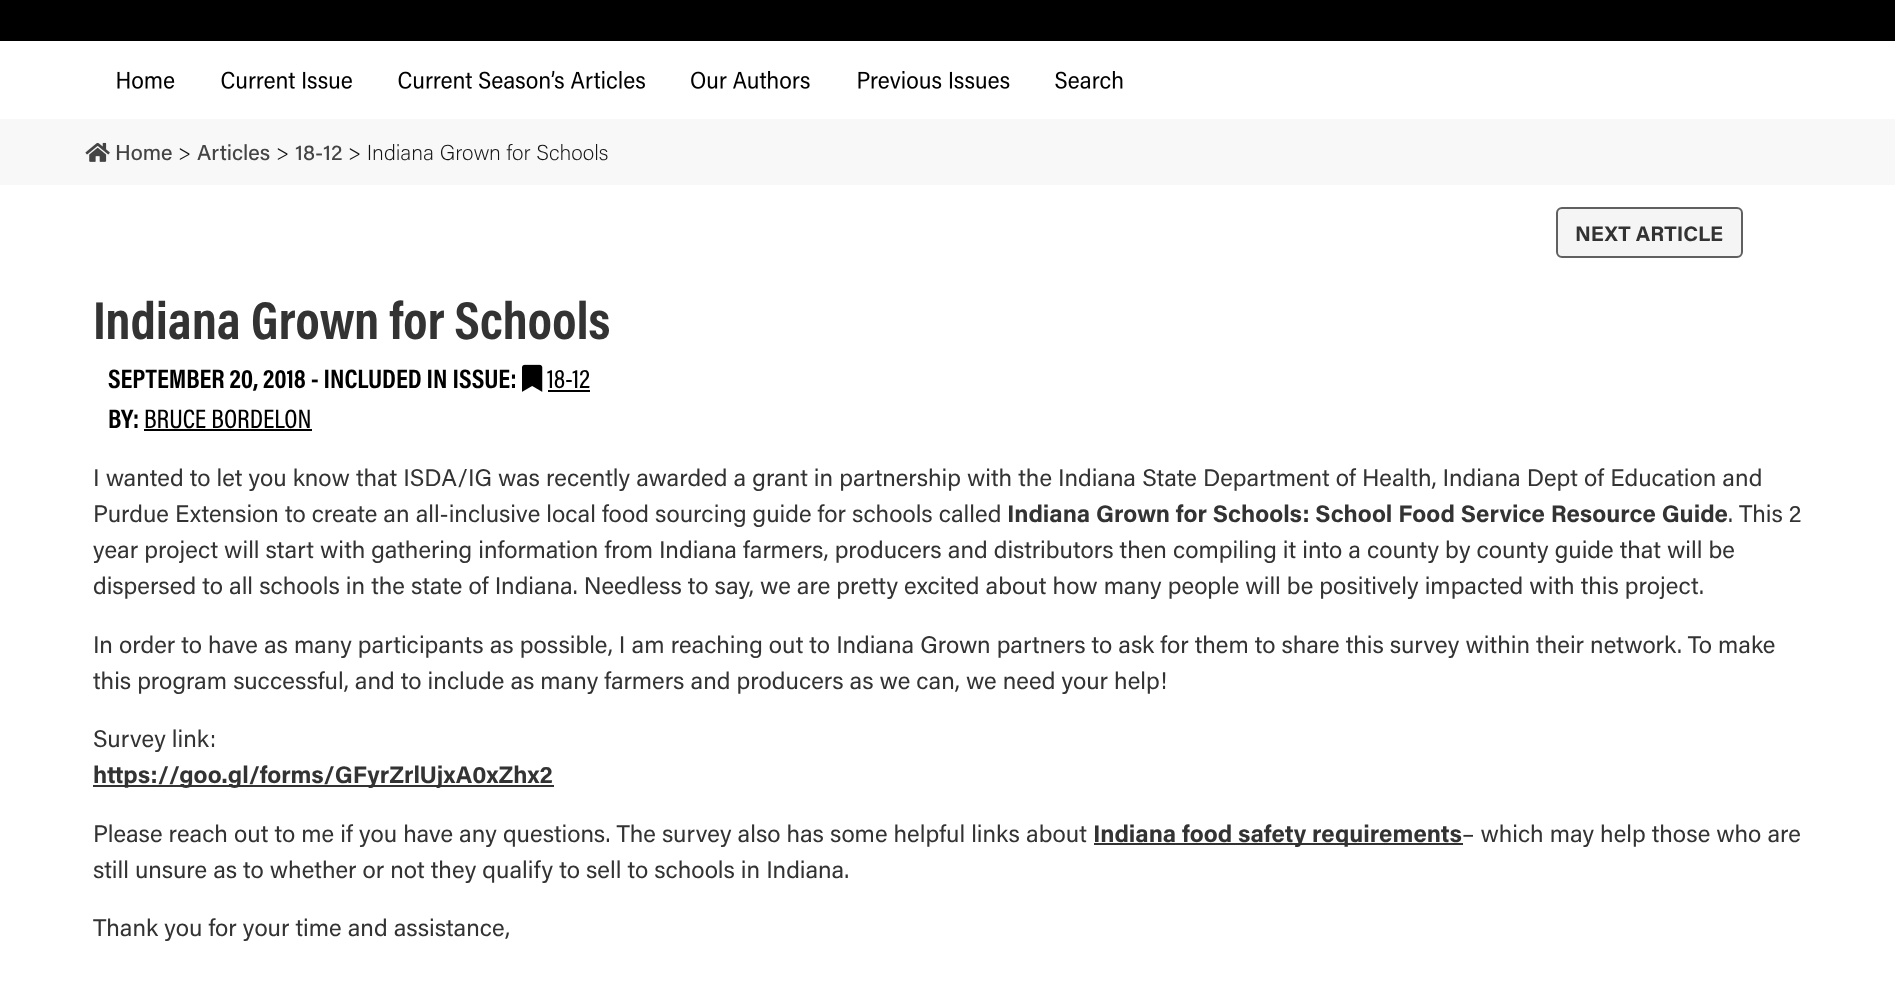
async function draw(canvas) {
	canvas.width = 1895;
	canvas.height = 983;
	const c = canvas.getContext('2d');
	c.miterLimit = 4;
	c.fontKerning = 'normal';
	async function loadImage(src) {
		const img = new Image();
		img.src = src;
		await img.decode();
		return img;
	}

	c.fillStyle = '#fff';
	c.fillRect(0, 0, 1895, 983);
	c.fillStyle = '#000';
	c.fillRect(0, 0, 1895, 41);
	c.drawImage(await loadImage('img1.png'), 117, 71, 58, 18);
	c.drawImage(await loadImage('img2.png'), 221, 71, 131, 18);
	c.drawImage(await loadImage('img3.png'), 398, 70, 247, 19);
	c.drawImage(await loadImage('img4.png'), 691, 71, 119, 18);
	c.drawImage(await loadImage('img5.png'), 858, 71, 152, 18);
	c.drawImage(await loadImage('img6.png'), 1055, 71, 68, 18);
	c.fillStyle = '#f8f8f8';
	c.fillRect(0, 119, 1895, 66);
	c.drawImage(await loadImage('img7.png'), 85, 142, 25, 20);
	c.font = '500 21.6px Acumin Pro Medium';
	c.fillStyle = '#444';
	c.fillText('Home', 115, 160);
	c.font = '200 21.6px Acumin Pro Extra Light';
	c.fillStyle = '#131212';
	c.fillText('>', 178, 160);
	c.font = '500 21.6px Acumin Pro Medium';
	c.fillStyle = '#444';
	c.fillText('Articles', 197, 160);
	c.font = '200 21.6px Acumin Pro Extra Light';
	c.fillStyle = '#131212';
	c.fillText('>', 276, 160);
	c.font = '500 21.6px Acumin Pro Medium';
	c.fillStyle = '#444';
	c.fillText('18-12', 295, 160);
	c.font = '200 21.6px Acumin Pro Extra Light';
	c.fillStyle = '#131212';
	c.fillText('> Indiana Grown for Schools', 348, 160);
	c.fillStyle = '#f5f5f5';
	c.beginPath();
	c.roundRect(1557, 208, 185, 49, 5);
	c.fill();
	c.strokeStyle = '#606060';
	c.lineWidth = 2;
	c.stroke();
	c.font = 'bold 21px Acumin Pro';
	c.fillStyle = '#333';
	c.fillText('NEXT ARTICLE', 1575, 241);
	c.font = 'bold 54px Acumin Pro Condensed';
	c.fillText('Indiana Grown for Schools', 93, 339);
	c.font = 'bold 27px Acumin Pro Condensed';
	c.fillStyle = '#000';
	c.fillText('SEPTEMBER 20, 2018 - INCLUDED IN ISSUE:', 108, 388);
	c.drawImage(await loadImage('img8.png'), 522, 364, 21, 28);
	c.font = '500 27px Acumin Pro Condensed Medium';
	c.fillText('18-12', 547, 388);
	c.fillRect(548, 390, 42, 2);
	c.font = 'bold 27px Acumin Pro Condensed';
	c.fillText('BY:', 108, 428);
	c.font = '500 27px Acumin Pro Condensed Medium';
	c.fillText('BRUCE BORDELON', 144, 428);
	c.fillRect(144, 429, 168, 2);
	c.font = '24px Acumin Pro';
	c.fillStyle = '#333';
	c.fillText('I wanted to let you know that ISDA/IG was recently awarded a grant in partnership with the Indiana State Department of Health, Indiana Dept of Education and', 93, 486);
	c.fillText('Purdue Extension to create an all-inclusive local food sourcing guide for schools called', 93, 522);
	c.font = 'bold 24px Acumin Pro';
	c.fillText('Indiana Grown for Schools: School Food Service Resource Guide', 1007, 522);
	c.font = '24px Acumin Pro';
	for (const [text, x, y] of [
		['. This 2', 1728, 522],
		['year project will start with gathering information from Indiana farmers, producers and distributors then compiling it into a county by county guide that will be', 93, 558],
		['dispersed to all schools in the state of Indiana. Needless to say, we are pretty excited about how many people will be positively impacted with this project.', 93, 594],
		['In order to have as many participants as possible, I am reaching out to Indiana Grown partners to ask for them to share this survey within their network. To make', 93, 653],
		['this program successful, and to include as many farmers and producers as we can, we need your help!', 93, 689],
		['Survey link:', 93, 747],
	]) {
		c.fillText(text, x, y);
	}
	c.fillRect(93, 785, 461, 2);
	c.font = 'bold 24px Acumin Pro';
	c.fillText('https://goo.gl/forms/GFyrZrlUjxA0xZhx2', 93, 783);
	c.font = '24px Acumin Pro';
	c.fillText('Please reach out to me if you have any questions. The survey also has some helpful links about', 93, 842);
	c.fillRect(1094, 843, 369, 2);
	c.font = 'bold 24px Acumin Pro';
	c.fillText('Indiana food safety requirements', 1093, 842);
	c.font = '24px Acumin Pro';
	for (const [text, x, y] of [
		['– which may help those who are', 1462, 842],
		['still unsure as to whether or not they qualify to sell to schools in Indiana.', 93, 878],
		['Thank you for your time and assistance,', 93, 936],
	]) {
		c.fillText(text, x, y);
	}
}

draw(document.querySelector('canvas'));
